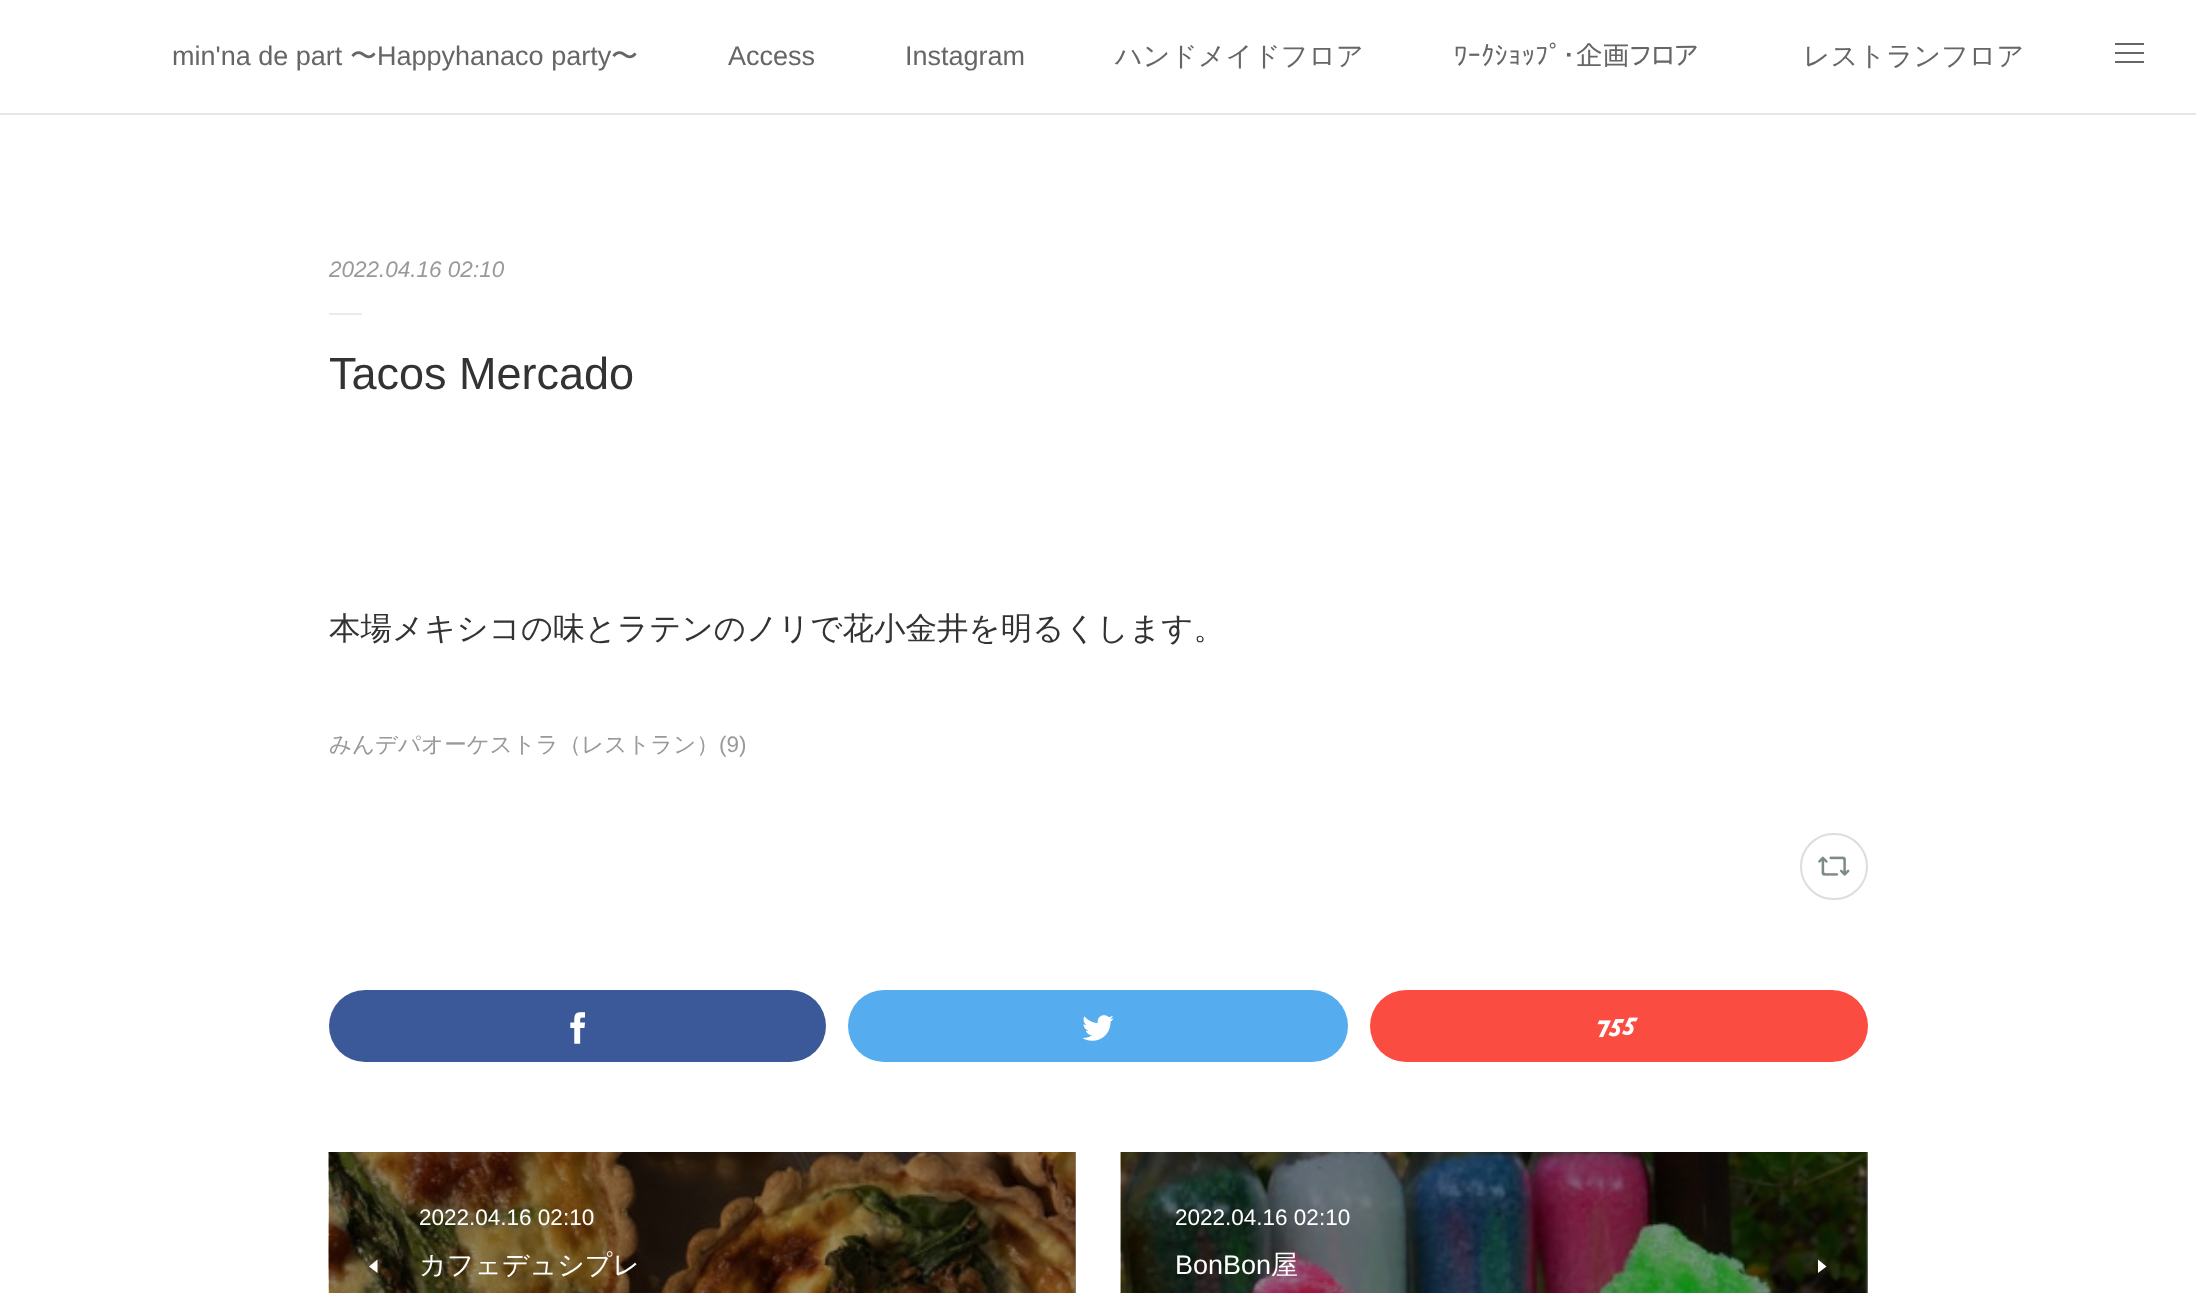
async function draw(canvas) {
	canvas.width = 2196;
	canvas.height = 1293;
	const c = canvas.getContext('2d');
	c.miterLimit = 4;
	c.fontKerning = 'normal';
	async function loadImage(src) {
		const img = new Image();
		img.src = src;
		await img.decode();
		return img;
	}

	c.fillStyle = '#fff';
	c.fillRect(0, 0, 2196, 1293);
	for (const [x, y, w, h, color] of [
		[1867, 1152, 1, 141, '#999'],
		[1075, 1152, 1, 141, '#999'],
		[0, 113, 2196, 2, '#e6e6e6'],
	]) {
		c.fillStyle = color;
		c.fillRect(x, y, w, h);
	}
	c.font = '27px Liberation Sans';
	c.fillStyle = '#666';
	c.fillText('min\'na de part', 172, 65);
	c.font = '500 27px WenQuanYi Zen Hei';
	c.fillText('〜', 350, 65);
	c.font = '27px Liberation Sans';
	c.fillText('Happyhanaco party', 377, 65);
	c.font = '500 27px WenQuanYi Zen Hei';
	c.fillText('〜', 611, 65);
	c.font = '27px Liberation Sans';
	c.fillText('Access', 728, 65);
	c.fillText('Instagram', 905, 65);
	c.font = '500 27px WenQuanYi Zen Hei';
	c.fillText('ハンドメイドフロア', 1115, 65);
	c.font = '27px IPAPGothic';
	c.fillText('ﾜｰｸｼｮｯﾌﾟ・企画フロア', 1454, 65);
	c.font = '500 27px WenQuanYi Zen Hei';
	c.fillText('レストランフロア', 1803, 65);
	for (const [x, y, w, h, color] of [
		[2115, 43, 29, 2, '#666'],
		[2115, 52, 29, 2, '#666'],
		[2115, 61, 29, 2, '#666'],
	]) {
		c.fillStyle = color;
		c.fillRect(x, y, w, h);
	}
	c.font = 'italic 22.5px Liberation Sans';
	c.fillStyle = '#999';
	c.fillText('2022.04.16 02:10', 329, 277);
	c.fillStyle = '#ebebeb';
	c.fillRect(329, 313, 33, 2);
	c.font = '45px Liberation Sans';
	c.fillStyle = '#333';
	c.fillText('Tacos Mercado', 329, 389);
	c.font = '500 31.5px WenQuanYi Zen Hei';
	c.fillText('本場メキシコの味とラテンのノリで花小金井を明るくします。', 329, 639);
	c.font = '500 22.5px WenQuanYi Zen Hei';
	c.fillStyle = '#999';
	c.fillText('みんデパオーケストラ（レストラン）', 329, 752);
	c.font = '22.5px Liberation Sans';
	c.fillText('(9)', 719, 752);
	c.beginPath();
	c.roundRect(1801, 834, 66, 65, 32.5);
	c.strokeStyle = '#ddd';
	c.lineWidth = 2;
	c.stroke();
	c.drawImage(await loadImage('img1.png'), 1818, 856, 32, 20);
	c.fillStyle = '#3b5998';
	c.beginPath();
	c.roundRect(329, 990, 497, 72, 36);
	c.fill();
	c.drawImage(await loadImage('img2.png'), 570, 1012, 15, 32);
	c.fillStyle = '#55acee';
	c.beginPath();
	c.roundRect(848, 990, 500, 72, 36);
	c.fill();
	c.drawImage(await loadImage('img3.png'), 1082, 1015, 32, 26);
	c.fillStyle = '#fb4c42';
	c.beginPath();
	c.roundRect(1370, 990, 498, 72, 36);
	c.fill();
	c.drawImage(await loadImage('img4.png'), 1597, 1017, 41, 21);
	c.drawImage(await loadImage('img5.png'), 328, 1152, 748, 141);
	c.fillStyle = '#fff';
	c.fillText('2022.04.16 02:10', 419, 1225);
	c.beginPath();
	c.moveTo(377.5, 1273);
	c.lineTo(377.5, 1259.5);
	c.lineTo(369, 1266.5);
	c.closePath();
	c.fill();
	c.font = '500 27px WenQuanYi Zen Hei';
	c.fillText('カフェデュシプレ', 419, 1274);
	c.drawImage(await loadImage('img6.png'), 1120, 1152, 748, 141);
	c.font = '22.5px Liberation Sans';
	c.fillText('2022.04.16 02:10', 1175, 1225);
	c.font = '27px Liberation Sans';
	c.fillText('BonBon', 1175, 1274);
	c.font = '500 27px WenQuanYi Zen Hei';
	c.fillText('屋', 1271, 1274);
	c.beginPath();
	c.moveTo(1818, 1259.5);
	c.lineTo(1818, 1273);
	c.lineTo(1826.5, 1266.5);
	c.closePath();
	c.fill();
}

draw(document.querySelector('canvas'));
